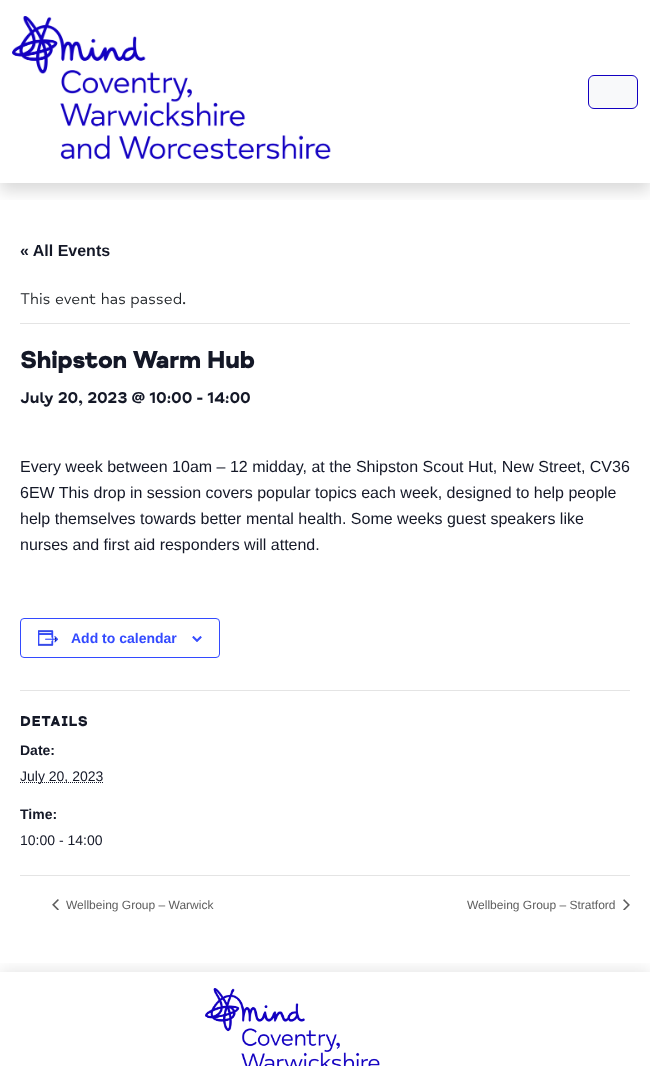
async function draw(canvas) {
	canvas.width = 650;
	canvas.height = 1066;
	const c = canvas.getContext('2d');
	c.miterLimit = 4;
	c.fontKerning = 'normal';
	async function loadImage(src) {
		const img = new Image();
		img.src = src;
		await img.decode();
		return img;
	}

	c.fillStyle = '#fff';
	c.fillRect(0, 0, 650, 1066);
	c.save();
	c.beginPath();
	c.rect(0, 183, 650, 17);
	c.clip();
	c.fillStyle = '#00000026';
	c.filter = 'blur(8px)';
	c.beginPath();
	c.rect(0, 8, 650, 183);
	c.fill();
	c.filter = 'none';
	c.restore();
	c.drawImage(await loadImage('img1.png'), 12, 16, 319, 144);
	c.fillStyle = '#f8f9fa';
	c.beginPath();
	c.roundRect(588.5, 75.5, 49, 33, 5.5);
	c.fill();
	c.strokeStyle = '#1300c1';
	c.stroke();
	c.font = 'bold 16px Liberation Sans';
	c.fillStyle = '#141827';
	c.fillText('« All Events', 20, 256);
	c.fillStyle = '#e4e4e4';
	c.fillRect(20, 323, 610, 1);
	c.font = '16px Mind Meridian';
	c.fillStyle = '#212529';
	c.fillText('This event has passed.', 20, 304);
	c.font = 'bold 24px Mind Meridian';
	c.fillStyle = '#141827';
	c.fillText('Shipston Warm Hub', 20, 368);
	c.font = '16px "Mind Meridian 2"';
	c.fillText('July 20, 2023 @ 10:00 - 14:00', 20, 403);
	c.font = '16px Liberation Sans';
	for (const [text, x, y] of [
		['Every week between 10am – 12 midday, at the Shipston Scout Hut, New Street, CV36', 20, 472],
		['6EW This drop in session covers popular topics each week, designed to help people', 20, 498],
		['help themselves towards better mental health. Some weeks guest speakers like', 20, 524],
		['nurses and first aid responders will attend.', 20, 550],
	]) {
		c.fillText(text, x, y);
	}
	c.beginPath();
	c.roundRect(20.5, 618.5, 199, 39, 3.5);
	c.strokeStyle = '#334aff';
	c.stroke();
	c.drawImage(await loadImage('img2.png'), 38, 630, 21, 16);
	c.font = 'bold 14px Liberation Sans';
	c.fillStyle = '#334aff';
	c.fillText('Add to calendar', 71, 643);
	c.drawImage(await loadImage('img3.png'), 192, 636, 10, 6);
	c.fillStyle = '#e4e4e4';
	c.fillRect(20, 690, 610, 1);
	c.letterSpacing = '1px';
	c.font = 'bold 14px Mind Meridian';
	c.fillStyle = '#141827';
	c.fillText('DETAILS', 20, 726);
	c.letterSpacing = '0px';
	c.font = 'bold 14px Liberation Sans';
	c.fillText('Date:', 20, 755);
	c.beginPath();
	c.moveTo(20, 782.5);
	c.lineTo(103.5, 782.5);
	c.strokeStyle = '#141827';
	c.setLineDash([1, 1]);
	c.stroke();
	c.font = '14px Liberation Sans';
	c.fillText('July 20, 2023', 20, 781);
	c.font = 'bold 14px Liberation Sans';
	c.fillText('Time:', 20, 819);
	c.font = '14px Liberation Sans';
	c.fillText('10:00 - 14:00', 20, 845);
	c.fillStyle = '#e4e4e4';
	c.fillRect(20, 875, 610, 1);
	c.drawImage(await loadImage('img4.png'), 52, 899, 7, 11);
	c.font = '12px Liberation Sans';
	c.fillStyle = '#5d5d5d';
	c.fillText('Wellbeing Group – Warwick', 66, 909);
	c.fillText('Wellbeing Group – Stratford', 467, 909);
	c.drawImage(await loadImage('img5.png'), 623, 899, 7, 11);
	c.save();
	c.beginPath();
	c.rect(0, 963, 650, 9);
	c.clip();
	c.fillStyle = '#0000001a';
	c.filter = 'blur(8px)';
	c.beginPath();
	c.rect(0, 970, 650, 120);
	c.fill();
	c.filter = 'none';
	c.restore();
	c.drawImage(await loadImage('img6.png'), 205, 988, 175, 78);
}

draw(document.querySelector('canvas'));
